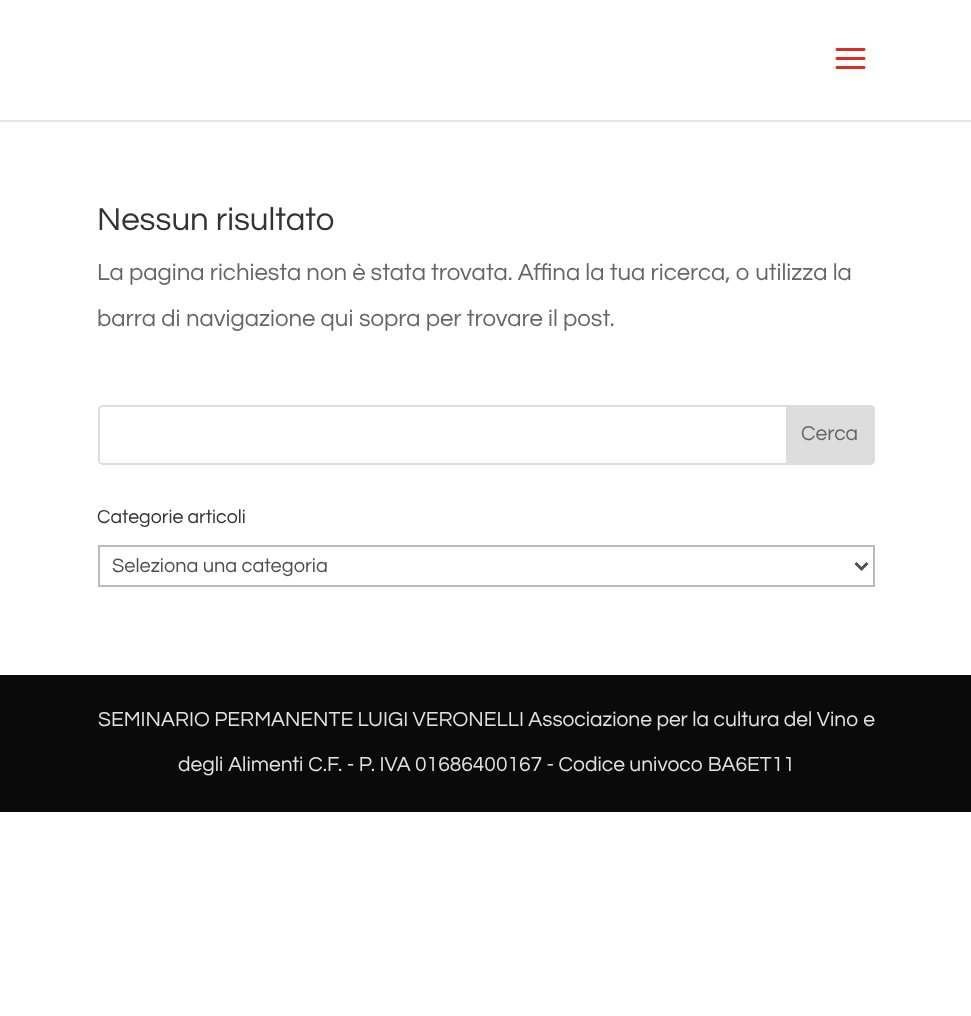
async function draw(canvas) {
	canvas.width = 971;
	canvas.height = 1016;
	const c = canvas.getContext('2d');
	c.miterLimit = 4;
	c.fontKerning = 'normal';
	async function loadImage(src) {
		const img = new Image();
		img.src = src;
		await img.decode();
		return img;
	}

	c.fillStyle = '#fff';
	c.fillRect(0, 0, 971, 1016);
	c.fillStyle = '#e6e6e6';
	c.fillRect(0, 120, 971, 2);
	c.drawImage(await loadImage('img1.png'), 835, 48, 31, 21);
	c.font = '33px Questrial';
	c.fillStyle = '#333';
	c.fillText('Nessun risultato', 97, 230);
	c.font = '24px Questrial';
	c.fillStyle = '#666';
	c.fillText('La pagina richiesta non è stata trovata. Affina la tua ricerca, o utilizza la', 97, 280);
	c.fillText('barra di navigazione qui sopra per trovare il post.', 97, 326);
	c.beginPath();
	c.roundRect(99, 406, 775, 58, 4);
	c.strokeStyle = '#ddd';
	c.lineWidth = 2;
	c.stroke();
	c.fillStyle = '#ddd';
	c.beginPath();
	c.roundRect(787, 406, 87, 58, [0, 4, 4, 0]);
	c.fill();
	c.stroke();
	c.font = '21px Questrial';
	c.fillStyle = '#666';
	c.fillText('Cerca', 801, 440);
	c.font = '19.5px Questrial';
	c.fillStyle = '#333';
	c.fillText('Categorie articoli', 97, 523);
	c.strokeStyle = '#bbb';
	c.strokeRect(99, 546, 775, 40);
	c.beginPath();
	c.moveTo(855.5, 563);
	c.lineTo(861.5, 569);
	c.lineTo(867.5, 563);
	c.strokeStyle = '#4e4e4e';
	c.lineWidth = 3;
	c.stroke();
	c.font = '20px Questrial';
	c.fillStyle = '#4e4e4e';
	c.fillText('Seleziona una categoria', 112, 572);
	c.fillStyle = '#0a0a0a';
	c.fillRect(0, 675, 971, 137);
	c.font = '21px Questrial';
	c.fillStyle = '#e2e2e2';
	c.fillText('SEMINARIO PERMANENTE LUIGI VERONELLI Associazione per la cultura del Vino e', 98, 726);
	c.fillText('degli Alimenti C.F. - P. IVA 01686400167 - Codice univoco BA6ET11', 178, 771);
}

draw(document.querySelector('canvas'));
